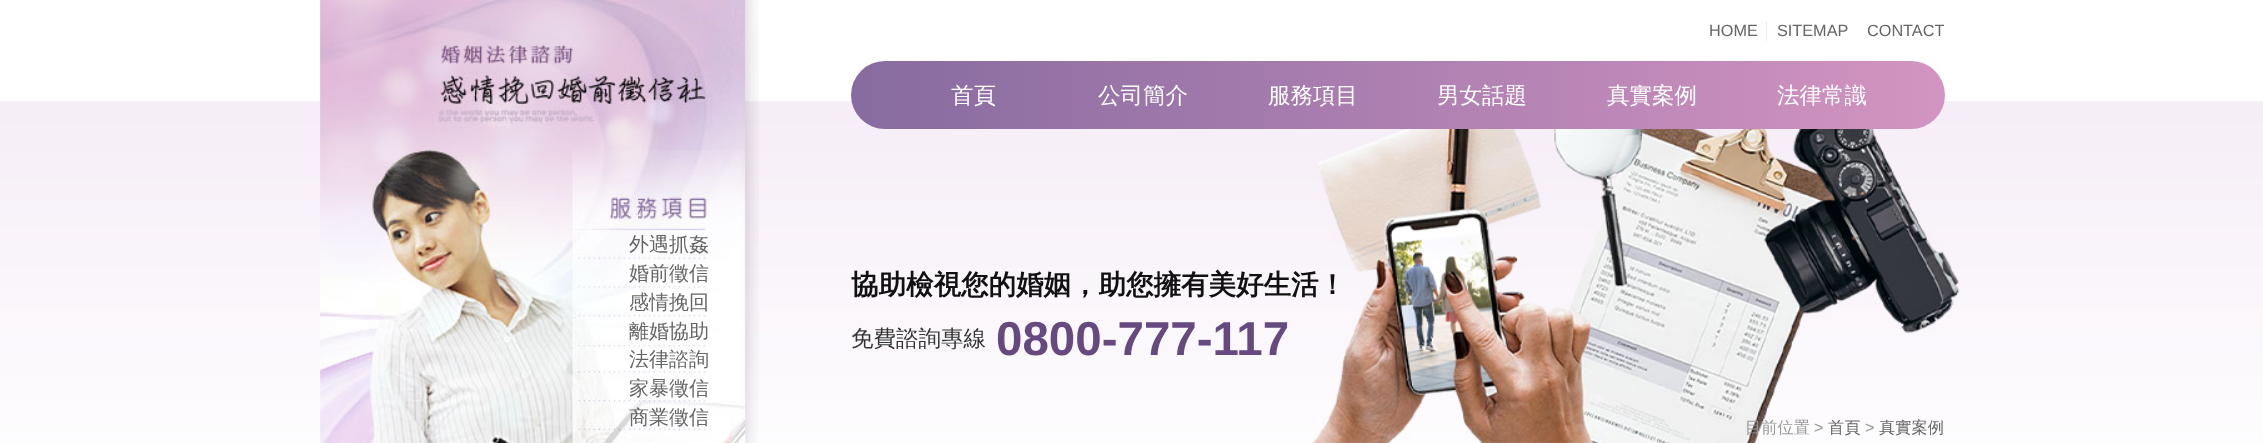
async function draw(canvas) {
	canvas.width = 2263;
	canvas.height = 443;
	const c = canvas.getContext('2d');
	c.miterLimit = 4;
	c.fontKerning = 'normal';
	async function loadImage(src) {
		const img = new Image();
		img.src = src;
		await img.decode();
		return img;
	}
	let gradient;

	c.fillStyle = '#fff';
	c.fillRect(0, 0, 2263, 443);
	c.drawImage(await loadImage('img1.png'), 0, 90, 2263, 353);
	c.drawImage(await loadImage('img2.png'), 320, 0, 439, 443);
	c.font = '500 20px WenQuanYi Zen Hei';
	c.fillStyle = '#666';
	for (const [text, x, y] of [
		['外遇抓姦', 629, 251],
		['婚前徵信', 629, 280],
		['感情挽回', 629, 309],
		['離婚協助', 629, 338],
		['法律諮詢', 629, 366],
		['家暴徵信', 629, 395],
		['商業徵信', 629, 424],
	]) {
		c.fillText(text, x, y);
	}
	c.font = '16.25px Liberation Sans';
	c.fillText('HOME', 1709, 36);
	c.fillStyle = '#eee';
	c.fillText('│', 1762, 36);
	c.fillStyle = '#666';
	c.fillText('SITEMAP', 1777, 36);
	c.fillText('CONTACT', 1867, 36);
	gradient = c.createLinearGradient(851, 95, 1945, 95);
	gradient.addColorStop(0, '#876ba0');
	gradient.addColorStop(1, '#d394c1');
	c.fillStyle = gradient;
	c.beginPath();
	c.roundRect(851, 61, 1094, 68, 34);
	c.fill();
	c.font = '500 22.5px WenQuanYi Zen Hei';
	c.fillStyle = '#fff';
	for (const [text, x, y] of [
		['首頁', 951, 103],
		['公司簡介', 1098, 103],
		['服務項目', 1268, 103],
		['男女話題', 1437, 103],
		['真實案例', 1607, 103],
		['法律常識', 1777, 103],
	]) {
		c.fillText(text, x, y);
	}
	c.font = 'bold 27.5px WenQuanYi Zen Hei';
	c.fillStyle = '#111';
	c.fillText('協助檢視您的婚姻，助您擁有美好生活！', 851, 294);
	c.font = '500 22.5px WenQuanYi Zen Hei';
	c.fillStyle = '#333';
	c.fillText('免費諮詢專線', 851, 346);
	c.font = 'bold 47.5px Liberation Sans';
	c.fillStyle = '#65497f';
	c.fillText('0800-777-117', 996, 355);
	c.font = '500 16.25px WenQuanYi Zen Hei';
	c.fillStyle = '#999';
	c.fillText('目前位置', 1745, 433);
	c.font = '16.25px Liberation Sans';
	c.fillText('>', 1814, 433);
	c.font = '500 16.25px WenQuanYi Zen Hei';
	c.fillStyle = '#666';
	c.fillText('首頁', 1828, 433);
	c.font = '16.25px Liberation Sans';
	c.fillStyle = '#999';
	c.fillText('>', 1865, 433);
	c.font = '500 16.25px WenQuanYi Zen Hei';
	c.fillStyle = '#666';
	c.fillText('真實案例', 1879, 433);
}

draw(document.querySelector('canvas'));
